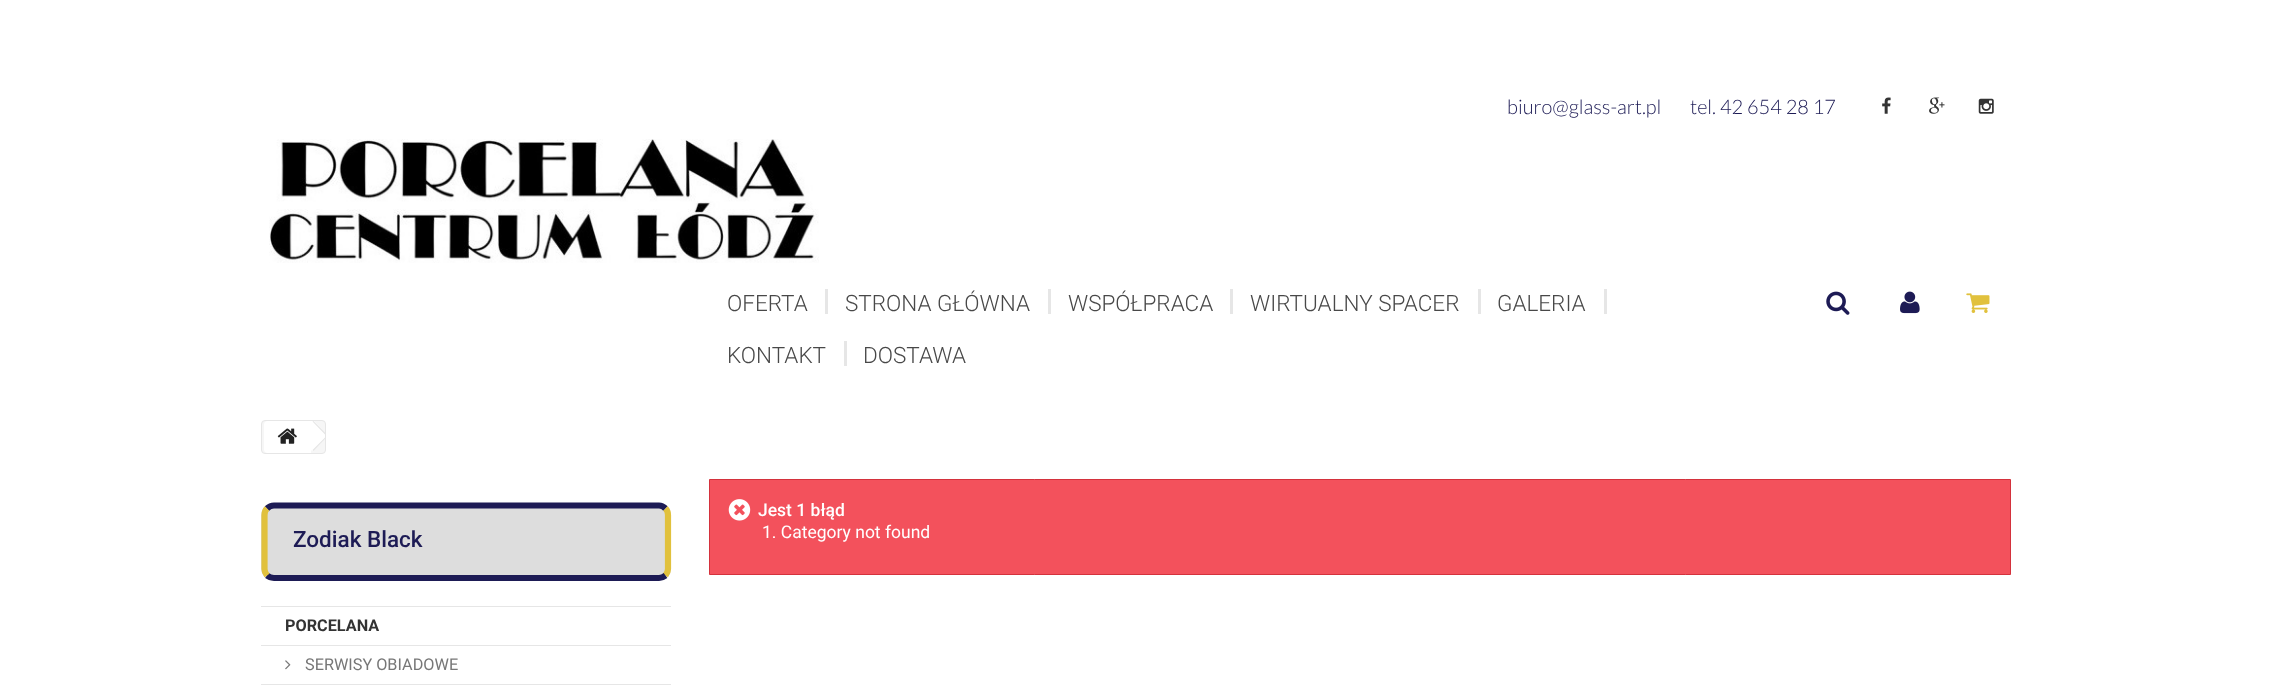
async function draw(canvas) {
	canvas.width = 2272;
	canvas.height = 686;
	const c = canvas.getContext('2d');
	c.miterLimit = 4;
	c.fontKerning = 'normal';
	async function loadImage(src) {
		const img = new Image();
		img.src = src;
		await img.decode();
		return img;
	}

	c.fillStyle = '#fff';
	c.fillRect(0, 0, 2272, 686);
	c.font = '300 20px Lato';
	c.fillStyle = '#1d1b55';
	c.fillText('biuro@glass-art.pl', 1507, 114);
	c.fillText('tel. 42 654 28 17', 1690, 114);
	c.drawImage(await loadImage('img1.png'), 1882, 97, 9, 17);
	c.drawImage(await loadImage('img2.png'), 1929, 97, 16, 17);
	c.drawImage(await loadImage('img3.png'), 1978, 98, 16, 16);
	c.drawImage(await loadImage('img4.png'), 269, 139, 550, 124);
	c.font = '300 22.5px Roboto';
	c.fillStyle = '#484848';
	c.fillText('OFERTA', 727, 311);
	c.fillStyle = '#e6e6e6';
	c.fillRect(825, 289, 3, 25);
	c.fillStyle = '#484848';
	c.fillText('STRONA GŁÓWNA', 845, 311);
	c.fillStyle = '#e6e6e6';
	c.fillRect(1048, 289, 3, 25);
	c.fillStyle = '#484848';
	c.fillText('WSPÓŁPRACA', 1068, 311);
	c.fillStyle = '#e6e6e6';
	c.fillRect(1230, 289, 3, 25);
	c.fillStyle = '#484848';
	c.fillText('WIRTUALNY SPACER', 1250, 311);
	c.fillStyle = '#e6e6e6';
	c.fillRect(1478, 289, 3, 25);
	c.fillStyle = '#484848';
	c.fillText('GALERIA', 1497, 311);
	c.fillStyle = '#e6e6e6';
	c.fillRect(1604, 289, 3, 25);
	c.fillStyle = '#484848';
	c.fillText('KONTAKT', 727, 363);
	c.fillStyle = '#e6e6e6';
	c.fillRect(844, 341, 3, 25);
	c.fillStyle = '#484848';
	c.fillText('DOSTAWA', 863, 363);
	c.drawImage(await loadImage('img5.png'), 1826, 291, 24, 24);
	c.drawImage(await loadImage('img6.png'), 1900, 291, 20, 23);
	c.drawImage(await loadImage('img7.png'), 1966, 293, 24, 20);
	c.fillStyle = '#f6f6f6';
	c.beginPath();
	c.roundRect(261.5, 420.5, 64, 33, 3.5);
	c.fill();
	c.strokeStyle = '#e6e6e6';
	c.stroke();
	c.fillStyle = '#fff';
	c.beginPath();
	c.roundRect(264, 421, 47, 32, [4, 0, 0, 4]);
	c.fill();
	c.drawImage(await loadImage('img8.png'), 277, 428, 20, 16);
	c.beginPath();
	c.moveTo(314.5, 421.5);
	c.lineTo(314, 421);
	c.lineTo(311, 421);
	c.lineTo(310.5, 421.5);
	c.lineTo(298.5, 434);
	c.bezierCurveTo(297.5, 435, 297.5, 436.5, 298.5, 437.5);
	c.lineTo(310.5, 450);
	c.bezierCurveTo(311.5, 451, 313.5, 451, 314.5, 450);
	c.lineTo(325, 439);
	c.lineTo(325, 432.5);
	c.closePath();
	c.fill();
	c.fillStyle = '#e6e6e6';
	c.beginPath();
	c.moveTo(313.5, 421);
	c.lineTo(325, 432.5);
	c.lineTo(325, 434.5);
	c.lineTo(312.5, 421.5);
	c.closePath();
	c.moveTo(325, 437.5);
	c.lineTo(325, 439);
	c.lineTo(313.5, 451);
	c.lineTo(312.5, 450);
	c.closePath();
	c.fill();
	c.fillStyle = '#f3515c';
	c.beginPath();
	c.rect(709.5, 479.5, 1301, 95);
	c.fill();
	c.strokeStyle = '#d4323d';
	c.stroke();
	c.drawImage(await loadImage('img9.png'), 728, 499, 23, 22);
	c.font = '500 17.5px Roboto';
	c.fillStyle = '#fff';
	c.fillText('Jest 1 błąd', 758, 516);
	c.font = '17.5px Roboto';
	c.fillText('1. Category not found', 762, 538);
	c.fillStyle = '#ddd';
	c.beginPath();
	c.roundRect(261, 503, 410, 78, 13);
	c.fill();
	c.beginPath();
	c.moveTo(267, 508.5);
	c.bezierCurveTo(269, 506.5, 271.5, 505.5, 274, 505.5);
	c.lineTo(659, 505.5);
	c.bezierCurveTo(661, 505.5, 663.5, 506.5, 665.5, 508.5);
	c.strokeStyle = '#1d1b55';
	c.lineWidth = 6.2;
	c.stroke();
	c.beginPath();
	c.moveTo(665.5, 508.5);
	c.bezierCurveTo(667, 510, 668, 512.5, 668, 515);
	c.lineTo(668, 569);
	c.bezierCurveTo(668, 571, 667, 573.5, 665.5, 575.5);
	c.strokeStyle = '#e1c13d';
	c.stroke();
	c.beginPath();
	c.moveTo(665.5, 575.5);
	c.bezierCurveTo(663.5, 577, 661, 578, 659, 578);
	c.lineTo(274, 578);
	c.bezierCurveTo(271.5, 578, 269, 577, 267, 575.5);
	c.strokeStyle = '#1d1b55';
	c.stroke();
	c.beginPath();
	c.moveTo(267, 575.5);
	c.bezierCurveTo(265.5, 573.5, 264.5, 571, 264.5, 569);
	c.lineTo(264.5, 515);
	c.bezierCurveTo(264.5, 512.5, 265.5, 510, 267, 508.5);
	c.strokeStyle = '#e1c13d';
	c.stroke();
	c.font = '500 22.5px Roboto';
	c.fillStyle = '#1d1b55';
	c.fillText('Zodiak Black', 293, 547);
	c.fillStyle = '#e6e6e6';
	c.fillRect(261, 606, 410, 1);
	c.fillRect(261, 645, 410, 1);
	c.font = 'bold 16.25px Roboto';
	c.fillStyle = '#333';
	c.fillText('PORCELANA', 285, 631);
	c.fillStyle = '#e6e6e6';
	c.fillRect(261, 684, 410, 1);
	c.drawImage(await loadImage('img10.png'), 285, 660, 6, 10);
	c.font = '16.25px Roboto';
	c.fillStyle = '#777';
	c.fillText('SERWISY OBIADOWE', 305, 670);
}

draw(document.querySelector('canvas'));
